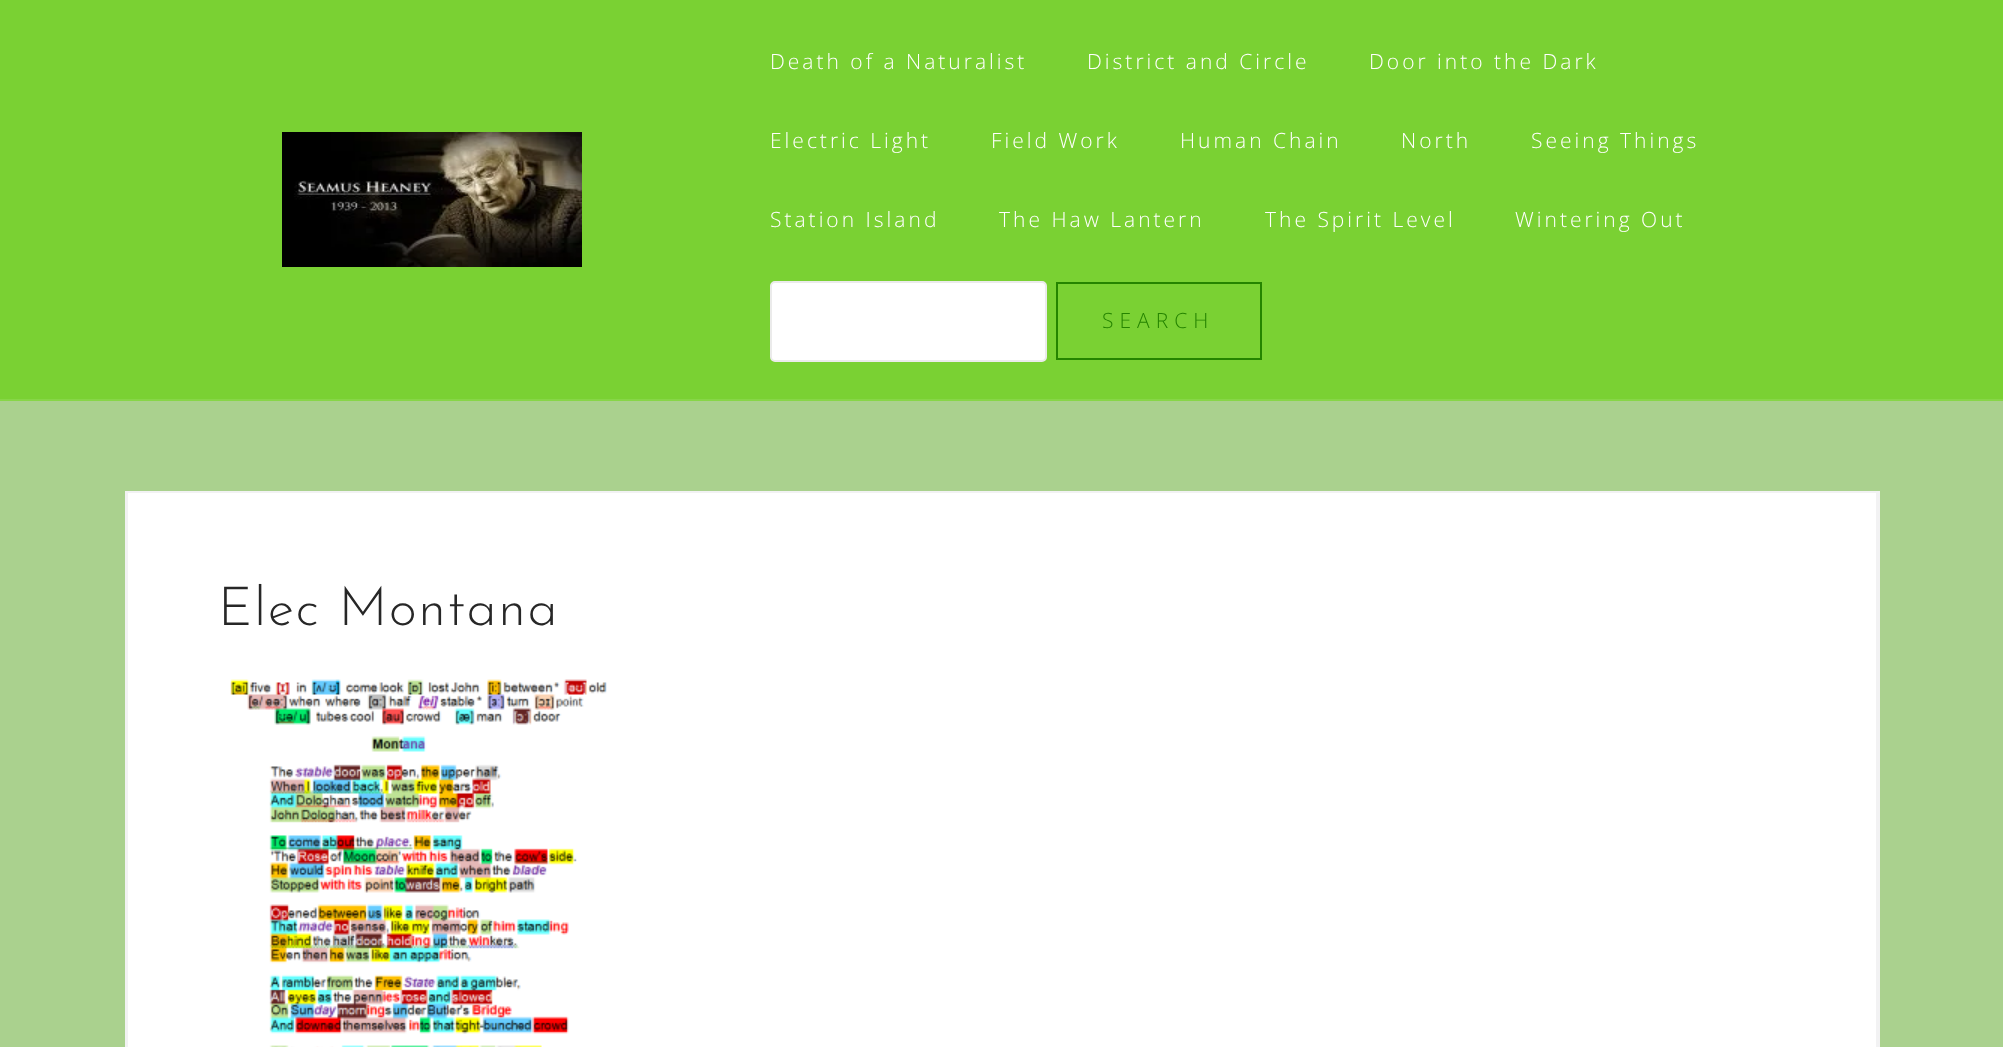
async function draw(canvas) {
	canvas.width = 2003;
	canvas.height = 1047;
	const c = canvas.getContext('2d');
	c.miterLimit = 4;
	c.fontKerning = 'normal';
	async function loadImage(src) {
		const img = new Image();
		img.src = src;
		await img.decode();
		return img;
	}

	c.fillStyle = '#aad18e';
	c.fillRect(0, 0, 2003, 1047);
	c.fillStyle = '#7ad133';
	c.fillRect(0, 0, 2003, 399);
	c.fillStyle = '#87d647';
	c.fillRect(0, 399, 2003, 2);
	c.drawImage(await loadImage('img1.png'), 282, 132, 300, 135);
	c.letterSpacing = '3px';
	c.font = '300 21px Open Sans';
	c.fillStyle = '#fff';
	for (const [text, x, y] of [
		['Death of a Naturalist', 770, 69],
		['District and Circle', 1087, 69],
		['Door into the Dark', 1369, 69],
		['Electric Light', 770, 148],
		['Field Work', 991, 148],
		['Human Chain', 1180, 148],
		['North', 1401, 148],
		['Seeing Things', 1531, 148],
		['Station Island', 770, 227],
		['The Haw Lantern', 999, 227],
		['The Spirit Level', 1265, 227],
		['Wintering Out', 1515, 227],
	]) {
		c.fillText(text, x, y);
	}
	c.beginPath();
	c.roundRect(771, 282, 275, 79, 4);
	c.fill();
	c.strokeStyle = '#ebebeb';
	c.lineWidth = 2;
	c.stroke();
	c.strokeStyle = '#258400';
	c.strokeRect(1057, 283, 204, 76);
	c.letterSpacing = '6px';
	c.fillStyle = '#258400';
	c.fillText('SEARCH', 1102, 328);
	c.fillStyle = '#f2f2f3';
	c.fillRect(1878, 491, 2, 556);
	c.fillRect(125, 491, 1, 556);
	c.fillStyle = '#fff';
	c.beginPath();
	c.rect(127, 492, 1750, 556);
	c.fill();
	c.strokeStyle = '#f2f2f3';
	c.stroke();
	c.letterSpacing = '1.5px';
	c.font = '100 54px Josefin Sans';
	c.fillStyle = '#272727';
	c.fillText('Elec Montana', 218, 625);
	c.drawImage(await loadImage('img2.png'), 230, 679, 377, 368);
}

draw(document.querySelector('canvas'));
